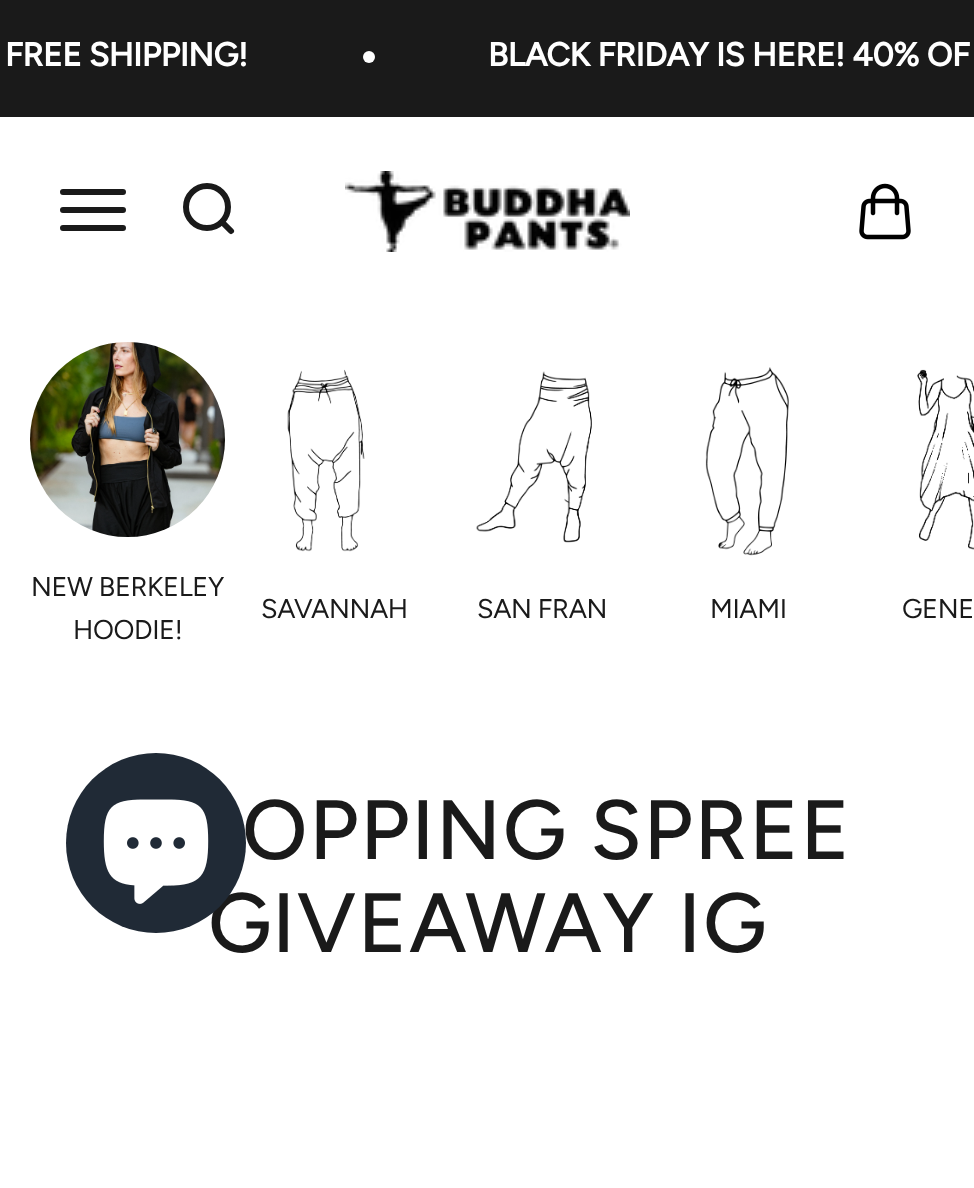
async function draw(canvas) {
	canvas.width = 974;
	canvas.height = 1188;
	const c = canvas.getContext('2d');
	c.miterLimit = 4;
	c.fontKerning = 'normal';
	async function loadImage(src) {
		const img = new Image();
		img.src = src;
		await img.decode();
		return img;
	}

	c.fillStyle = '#fff';
	c.fillRect(0, 0, 974, 1188);
	c.fillStyle = '#1a1a1a';
	c.fillRect(0, 0, 974, 117);
	c.letterSpacing = '-0.4px';
	c.font = 'bold 33px Figtree';
	c.fillStyle = '#fff';
	c.fillText('FREE SHIPPING!', 5, 66);
	c.beginPath();
	c.arc(369, 57, 6, 0, 2 * Math.PI);
	c.fill();
	c.fillText('BLACK FRIDAY IS HERE! 40% OF', 488, 66);
	c.beginPath();
	c.moveTo(63, 192);
	c.lineTo(123, 192);
	c.moveTo(63, 210);
	c.lineTo(123, 210);
	c.moveTo(63, 228);
	c.lineTo(123, 228);
	c.strokeStyle = '#1a1a1a';
	c.lineWidth = 6;
	c.lineCap = 'round';
	c.stroke();
	c.beginPath();
	c.arc(207, 207, 21, 0, 2 * Math.PI);
	c.stroke();
	c.beginPath();
	c.moveTo(222, 222);
	c.lineTo(231, 231);
	c.lineJoin = 'round';
	c.stroke();
	c.drawImage(await loadImage('img1.png'), 345, 171, 285, 81);
	c.drawImage(await loadImage('img2.png'), 859, 183, 52, 57);
	c.drawImage(await loadImage('img3.png'), 30, 342, 195, 195);
	c.font = '27px Figtree';
	c.fillStyle = '#1a1a1a';
	c.fillText('NEW BERKELEY', 31, 596);
	c.fillText('HOODIE!', 73, 639);
	c.drawImage(await loadImage('img4.png'), 287, 369, 78, 183);
	c.fillText('SAVANNAH', 261, 618);
	c.drawImage(await loadImage('img5.png'), 476, 371, 116, 172);
	c.fillText('SAN FRAN', 477, 618);
	c.drawImage(await loadImage('img6.png'), 705, 367, 84, 189);
	c.fillText('MIAMI', 710, 618);
	c.drawImage(await loadImage('img7.png'), 917, 369, 57, 181);
	c.fillText('GENE', 902, 618);
	c.letterSpacing = '1.75px';
	c.font = '500 84px Figtree';
	c.fillText('OPPING SPREE', 242, 859);
	c.fillText('GIVEAWAY IG', 208, 952);
	c.fillStyle = '#202a36';
	c.beginPath();
	c.arc(156, 843, 90, 0, 2 * Math.PI);
	c.fill();
	c.drawImage(await loadImage('img8.png'), 103, 799, 106, 105);
}

draw(document.querySelector('canvas'));
